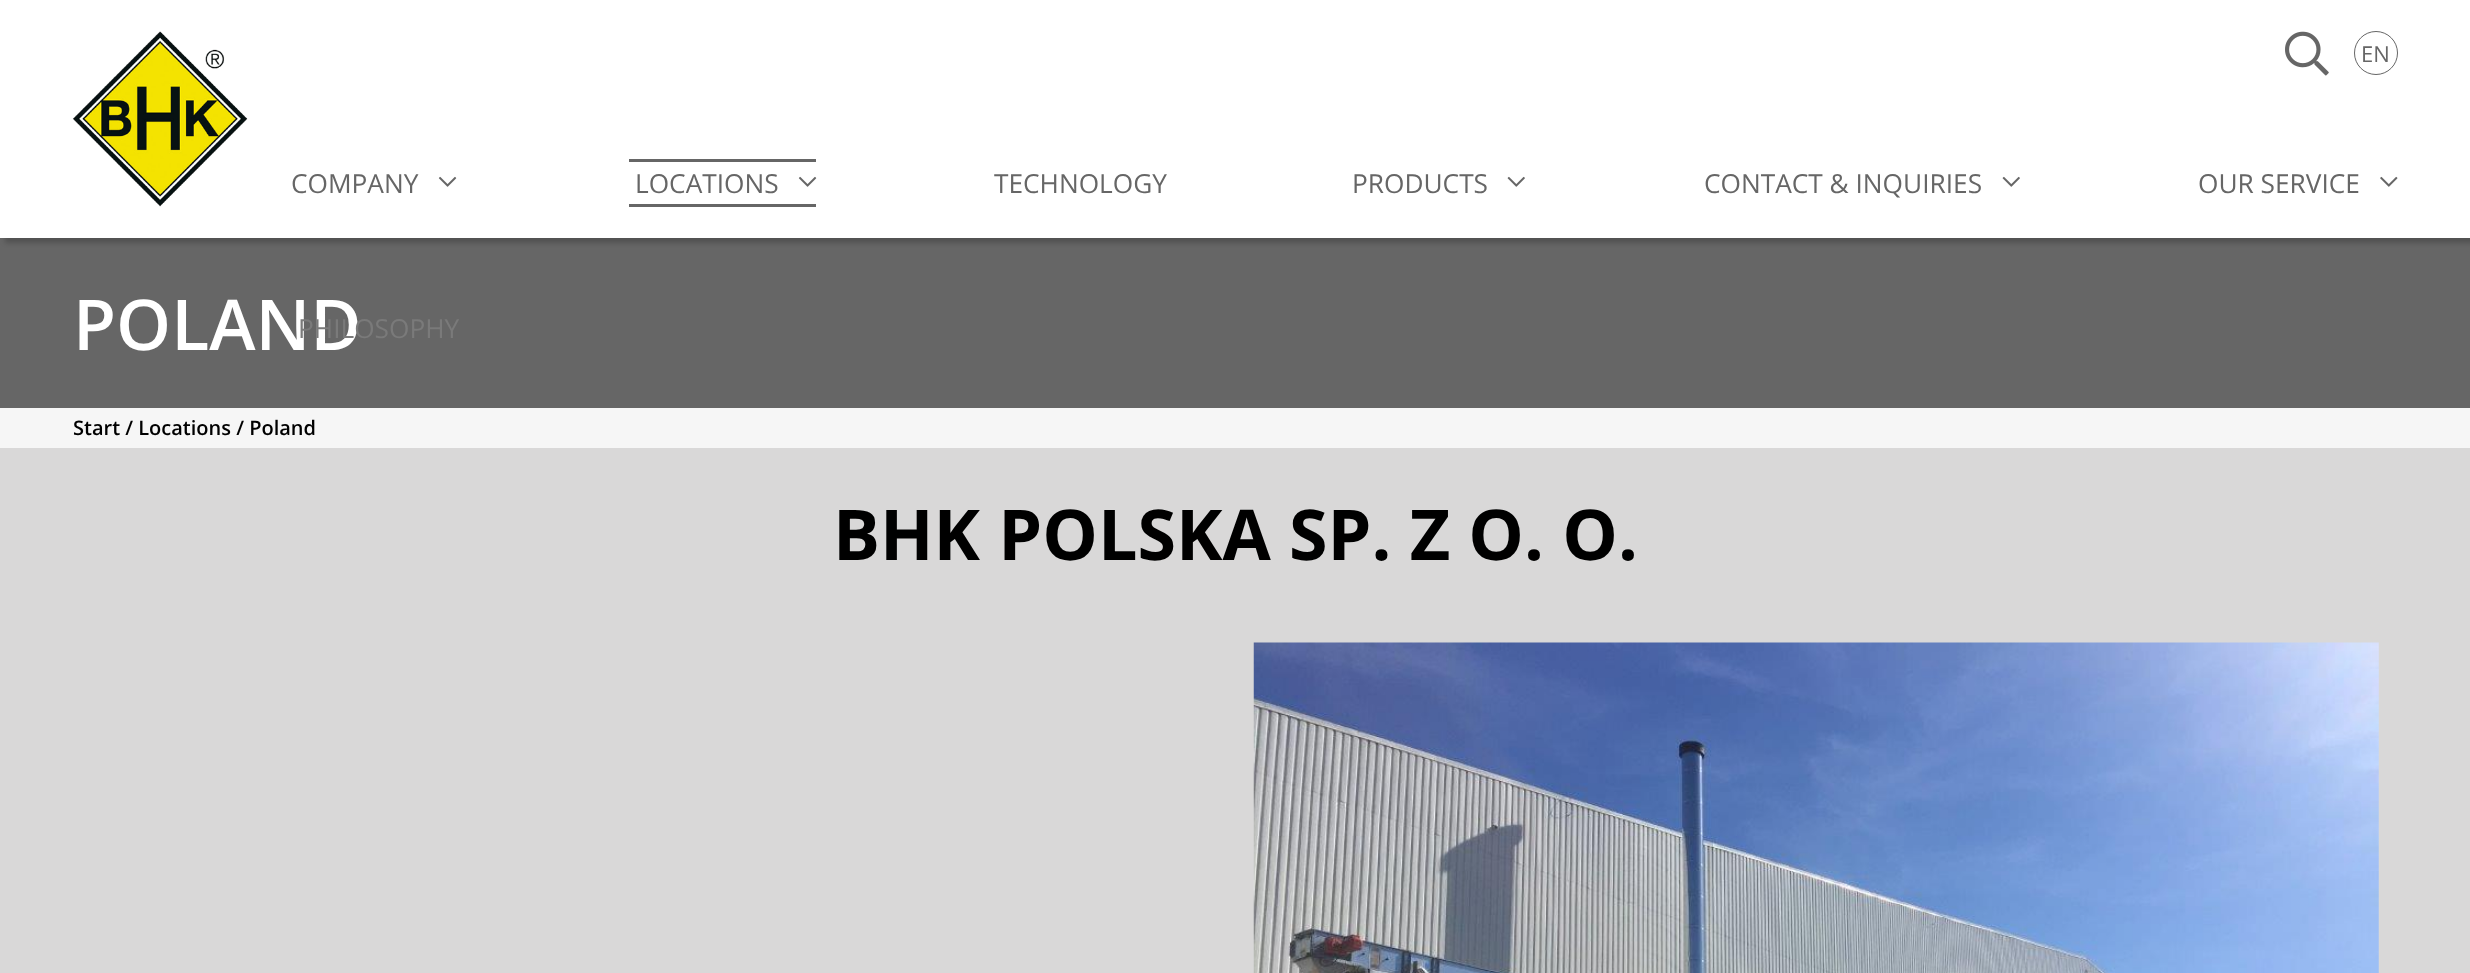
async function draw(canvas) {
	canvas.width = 2470;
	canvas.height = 973;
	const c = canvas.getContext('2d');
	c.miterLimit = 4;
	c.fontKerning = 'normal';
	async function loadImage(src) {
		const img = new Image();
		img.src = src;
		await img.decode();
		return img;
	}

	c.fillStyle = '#666';
	c.fillRect(0, 0, 2470, 973);
	c.fillStyle = '#fff';
	c.fillRect(0, 0, 2470, 238);
	c.save();
	c.beginPath();
	c.moveTo(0, 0);
	c.lineTo(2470, 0);
	c.lineTo(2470, 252);
	c.lineTo(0, 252);
	c.closePath();
	c.moveTo(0, 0);
	c.lineTo(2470, 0);
	c.lineTo(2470, 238);
	c.lineTo(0, 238);
	c.closePath();
	c.clip('evenodd');
	c.fillStyle = '#00000033';
	c.filter = 'blur(2.5px)';
	c.beginPath();
	c.rect(5, 5, 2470, 238);
	c.fill();
	c.filter = 'none';
	c.restore();
	c.drawImage(await loadImage('img1.png'), 2285, 31, 44, 45);
	c.beginPath();
	c.arc(2376, 53, 21.5, 0, 2 * Math.PI);
	c.strokeStyle = '#666';
	c.stroke();
	c.font = '22px Open Sans';
	c.fillStyle = '#666';
	c.fillText('EN', 2361, 62);
	c.drawImage(await loadImage('img2.png'), 72, 31, 176, 176);
	c.font = '26.25px Open Sans';
	c.fillText('COMPANY', 291, 193);
	c.drawImage(await loadImage('img3.png'), 438, 176, 19, 11);
	c.font = '600 70px Open Sans';
	c.fillStyle = '#fff';
	c.fillText('POLAND', 73, 350);
	c.font = '26.25px Open Sans';
	c.fillStyle = '#7a7a7a';
	c.fillText('PHILOSOPHY', 298, 338);
	c.fillStyle = '#666';
	c.fillRect(629, 159, 187, 3);
	c.fillText('LOCATIONS', 635, 193);
	c.fillRect(629, 204, 187, 3);
	c.drawImage(await loadImage('img3.png'), 798, 176, 19, 11);
	c.fillText('TECHNOLOGY', 994, 193);
	c.fillText('PRODUCTS', 1352, 193);
	c.drawImage(await loadImage('img4.png'), 1507, 176, 18, 11);
	c.fillText('CONTACT & INQUIRIES', 1704, 193);
	c.drawImage(await loadImage('img4.png'), 2002, 176, 18, 11);
	c.fillText('OUR SERVICE', 2198, 193);
	c.drawImage(await loadImage('img5.png'), 2380, 176, 18, 11);
	c.fillStyle = '#f6f6f6';
	c.fillRect(0, 408, 2470, 40);
	c.font = '600 20px Open Sans';
	c.fillStyle = '#000';
	c.fillText('Start / Locations / Poland', 73, 435);
	c.fillStyle = '#d9d8d8';
	c.fillRect(0, 448, 2470, 525);
	c.font = 'bold 70px Open Sans';
	c.fillStyle = '#000';
	c.fillText('BHK POLSKA SP. Z O. O.', 833, 560);
	c.drawImage(await loadImage('img6.png'), 1253, 642, 1126, 331);
}

draw(document.querySelector('canvas'));
